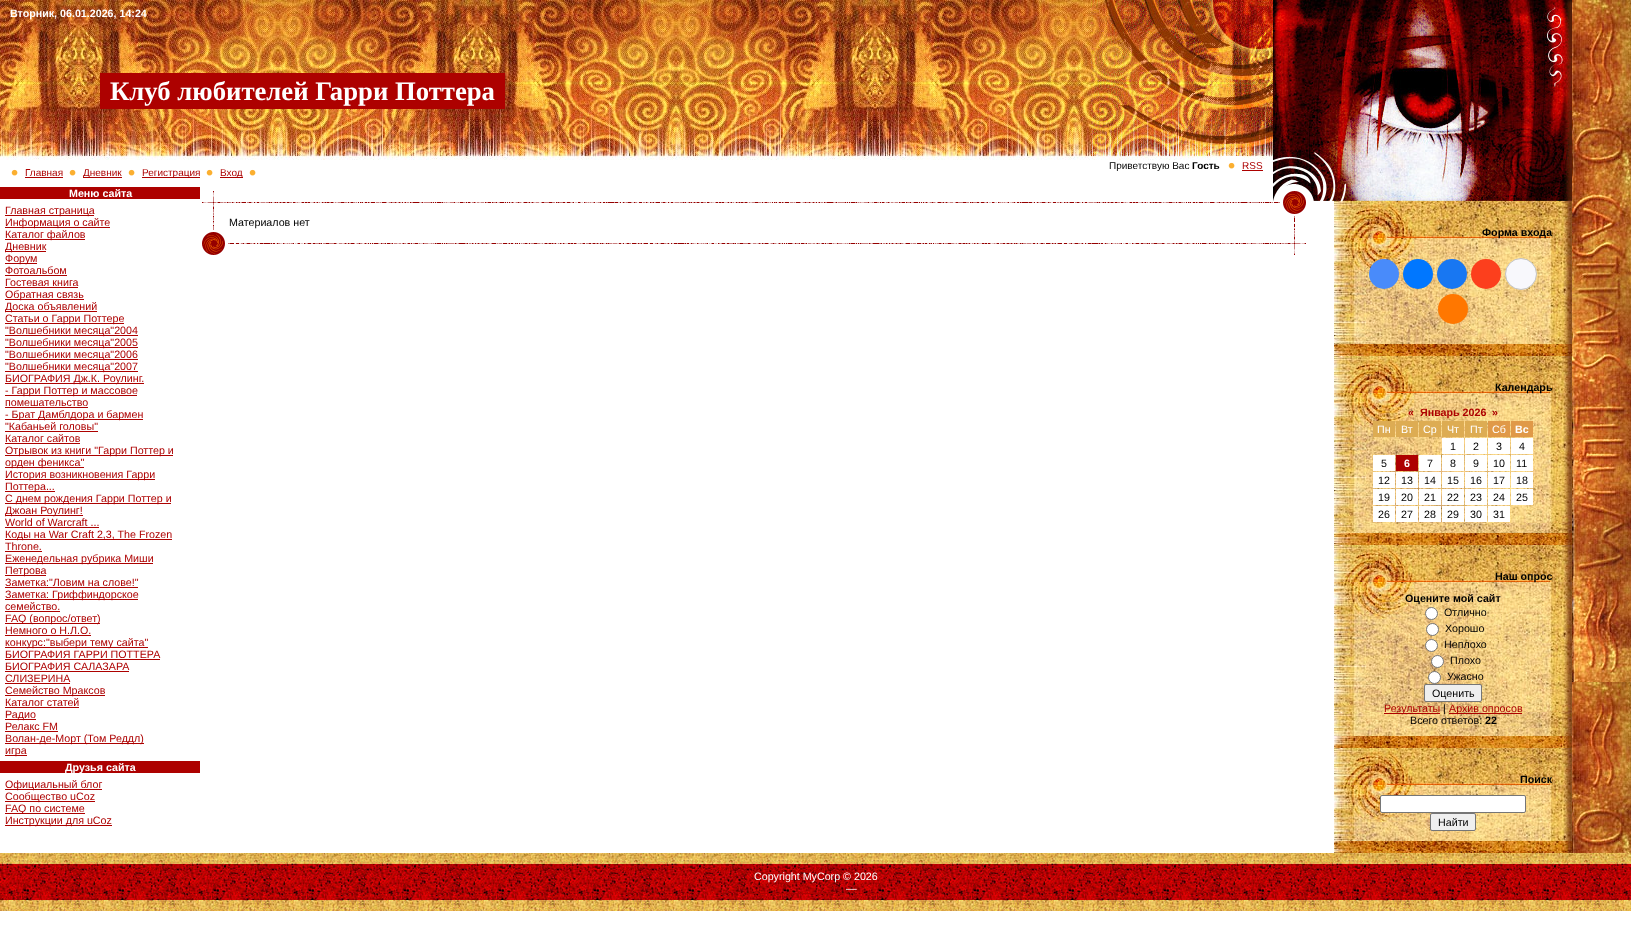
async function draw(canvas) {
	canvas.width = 1631;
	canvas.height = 934;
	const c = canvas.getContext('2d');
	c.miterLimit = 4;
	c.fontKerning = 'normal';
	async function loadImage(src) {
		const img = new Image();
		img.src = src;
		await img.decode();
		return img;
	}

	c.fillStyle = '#fff';
	c.fillRect(0, 0, 1631, 934);
	c.drawImage(await loadImage('img1.png'), 0, 0, 1273, 160);
	c.font = 'bold 10.7px Liberation Sans';
	c.fillText('Вторник, 06.01.2026, 14:24', 10, 17);
	c.drawImage(await loadImage('img2.png'), 1091, 0, 182, 156);
	c.font = '10px Liberation Sans';
	c.fillStyle = '#000';
	c.fillText('Приветствую Вас', 1109, 169);
	c.font = 'bold 10px Liberation Sans';
	c.fillText('Гость', 1192, 169);
	c.drawImage(await loadImage('img3.png'), 1222, 156, 20, 13);
	c.font = '10px Liberation Sans';
	c.fillStyle = '#ad0100';
	c.fillText('RSS', 1242, 169);
	c.fillRect(1242, 170, 21, 1);
	c.fillRect(100, 73, 405, 36);
	c.font = 'bold 26.7px Liberation Serif';
	c.fillStyle = '#fff';
	c.fillText('Клуб любителей Гарри Поттера', 110, 100);
	c.drawImage(await loadImage('img4.png'), 11, 169, 7, 7);
	c.font = '10px Liberation Sans';
	c.fillStyle = '#ad0100';
	c.fillText('Главная', 25, 176);
	c.fillRect(25, 177, 38, 1);
	c.drawImage(await loadImage('img4.png'), 69, 169, 7, 7);
	c.fillRect(83, 177, 39, 1);
	c.fillText('Дневник', 83, 176);
	c.drawImage(await loadImage('img4.png'), 128, 169, 7, 7);
	c.fillRect(142, 177, 58, 1);
	c.fillText('Регистрация', 142, 176);
	c.drawImage(await loadImage('img4.png'), 206, 169, 7, 7);
	c.fillRect(220, 177, 23, 1);
	c.fillText('Вход', 220, 176);
	c.drawImage(await loadImage('img4.png'), 249, 169, 7, 7);
	c.drawImage(await loadImage('img5.png'), 1273, 0, 299, 187);
	c.fillRect(0, 187, 200, 12);
	c.font = 'bold 10.7px Liberation Sans';
	c.fillStyle = '#fff';
	c.fillText('Меню сайта', 69, 197);
	c.fillStyle = '#ad0100';
	c.fillRect(5, 215, 89, 1);
	c.font = '10.7px Liberation Sans';
	c.fillText('Главная страница', 5, 214);
	c.fillRect(5, 227, 105, 1);
	c.fillText('Информация о сайте', 5, 226);
	c.fillRect(5, 239, 80, 1);
	c.fillText('Каталог файлов', 5, 238);
	c.fillRect(5, 251, 41, 1);
	c.fillText('Дневник', 5, 250);
	c.fillRect(5, 263, 32, 1);
	c.fillText('Форум', 5, 262);
	c.fillText('Фотоальбом', 5, 274);
	c.fillRect(5, 275, 62, 1);
	c.fillText('Гостевая книга', 5, 286);
	c.fillRect(5, 287, 73, 1);
	c.fillRect(5, 299, 79, 1);
	c.fillText('Обратная связь', 5, 298);
	c.fillRect(5, 311, 92, 1);
	c.fillText('Доска объявлений', 5, 310);
	c.fillRect(5, 323, 119, 1);
	c.fillText('Статьи о Гарри Поттере', 5, 322);
	c.fillRect(5, 335, 133, 1);
	c.fillText('"Волшебники месяца"2004', 5, 334);
	c.fillRect(5, 347, 133, 1);
	c.fillText('"Волшебники месяца"2005', 5, 346);
	c.fillRect(5, 359, 133, 1);
	c.fillText('"Волшебники месяца"2006', 5, 358);
	c.fillRect(5, 371, 133, 1);
	c.fillText('"Волшебники месяца"2007', 5, 370);
	c.fillRect(5, 383, 139, 1);
	c.fillText('БИОГРАФИЯ Дж.К. Роулинг.', 5, 382);
	c.fillRect(5, 395, 132, 1);
	c.fillText('- Гарри Поттер и массовое', 5, 394);
	c.fillText('помешательство', 5, 406);
	c.fillRect(5, 407, 83, 1);
	c.fillRect(5, 419, 138, 1);
	c.fillText('- Брат Дамблдора и бармен', 5, 418);
	c.fillText('"Кабаньей головы"', 5, 430);
	c.fillRect(5, 431, 93, 1);
	c.fillText('Каталог сайтов', 5, 442);
	c.fillRect(5, 443, 75, 1);
	c.fillRect(5, 455, 168, 1);
	c.fillText('Отрывок из книги "Гарри Поттер и', 5, 454);
	c.fillRect(5, 467, 79, 1);
	c.fillText('орден феникса"', 5, 466);
	c.fillRect(5, 479, 150, 1);
	c.fillText('История возникновения Гарри', 5, 478);
	c.fillRect(5, 491, 50, 1);
	c.fillText('Поттера...', 5, 490);
	c.fillRect(5, 503, 166, 1);
	c.fillText('С днем рождения Гарри Поттер и', 5, 502);
	c.fillRect(5, 515, 78, 1);
	c.fillText('Джоан Роулинг!', 5, 514);
	c.fillText('World of Warcraft ...', 5, 526);
	c.fillRect(5, 527, 94, 1);
	c.fillRect(5, 539, 167, 1);
	c.fillText('Коды на War Craft 2,3, The Frozen', 5, 538);
	c.fillText('Throne.', 5, 550);
	c.fillRect(5, 551, 37, 1);
	c.fillRect(5, 563, 148, 1);
	c.fillText('Еженедельная рубрика Миши', 5, 562);
	c.fillRect(5, 575, 41, 1);
	c.fillText('Петрова', 5, 574);
	c.fillText('Заметка:"Ловим на слове!"', 5, 586);
	c.fillRect(5, 587, 133, 1);
	c.fillRect(5, 599, 133, 1);
	c.fillText('Заметка: Гриффиндорское', 5, 598);
	c.fillText('семейство.', 5, 610);
	c.fillRect(5, 611, 55, 1);
	c.fillRect(5, 623, 95, 1);
	c.fillText('FAQ (вопрос/ответ)', 5, 622);
	c.fillText('Немного о Н.Л.О.', 5, 634);
	c.fillRect(5, 635, 86, 1);
	c.fillRect(5, 647, 143, 1);
	c.fillText('конкурс:"выбери тему сайта"', 5, 646);
	c.fillText('БИОГРАФИЯ ГАРРИ ПОТТЕРА', 5, 658);
	c.fillRect(5, 659, 155, 1);
	c.fillText('БИОГРАФИЯ САЛАЗАРА', 5, 670);
	c.fillRect(5, 671, 124, 1);
	c.fillText('СЛИЗЕРИНА', 5, 682);
	c.fillRect(5, 683, 65, 1);
	c.fillRect(5, 695, 100, 1);
	c.fillText('Семейство Мраксов', 5, 694);
	c.fillText('Каталог статей', 5, 706);
	c.fillRect(5, 707, 74, 1);
	c.fillRect(5, 719, 31, 1);
	c.fillText('Радио', 5, 718);
	c.fillText('Релакс FM', 5, 730);
	c.fillRect(5, 731, 53, 1);
	c.fillRect(5, 743, 139, 1);
	c.fillText('Волан-де-Морт (Том Реддл)', 5, 742);
	c.fillRect(5, 755, 22, 1);
	c.fillText('игра', 5, 754);
	c.fillRect(0, 761, 200, 12);
	c.font = 'bold 10.7px Liberation Sans';
	c.fillStyle = '#fff';
	c.fillText('Друзья сайта', 65, 771);
	c.fillStyle = '#ad0100';
	c.fillRect(5, 789, 97, 1);
	c.font = '10.7px Liberation Sans';
	c.fillText('Официальный блог', 5, 788);
	c.fillRect(5, 801, 90, 1);
	c.fillText('Сообщество uCoz', 5, 800);
	c.fillRect(5, 813, 80, 1);
	c.fillText('FAQ по системе', 5, 812);
	c.fillRect(5, 825, 107, 1);
	c.fillText('Инструкции для uCoz', 5, 824);
	c.drawImage(await loadImage('img6.png'), 202, 191, 27, 25);
	c.drawImage(await loadImage('img7.png'), 229, 202, 1044, 1);
	c.drawImage(await loadImage('img8.png'), 1273, 187, 61, 27);
	c.drawImage(await loadImage('img9.png'), 213, 216, 1, 12);
	c.fillStyle = '#000';
	c.fillText('Материалов нет', 229, 226);
	c.drawImage(await loadImage('img10.png'), 1294, 216, 1, 12);
	c.drawImage(await loadImage('img11.png'), 202, 228, 27, 27);
	c.drawImage(await loadImage('img12.png'), 229, 243, 1044, 1);
	c.drawImage(await loadImage('img13.png'), 1273, 228, 33, 27);
	c.drawImage(await loadImage('img14.png'), 1334, 344, 238, 509);
	c.drawImage(await loadImage('img15.png'), 1334, 187, 238, 14);
	c.drawImage(await loadImage('img16.png'), 1334, 275, 238, 69);
	c.drawImage(await loadImage('img17.png'), 1334, 201, 238, 37);
	c.drawImage(await loadImage('img18.png'), 1334, 238, 238, 37);
	c.font = 'bold 10.7px Liberation Sans';
	c.fillText('Форма входа', 1482, 236);
	c.fillStyle = '#498bfa';
	c.beginPath();
	c.arc(1384, 274, 15, 0, 2 * Math.PI);
	c.fill();
	c.fillStyle = '#07f';
	c.beginPath();
	c.arc(1418, 274, 15, 0, 2 * Math.PI);
	c.fill();
	c.fillStyle = '#1877f2';
	c.beginPath();
	c.arc(1452, 274, 15, 0, 2 * Math.PI);
	c.fill();
	c.fillStyle = '#fc3f1d';
	c.beginPath();
	c.arc(1486, 274, 15, 0, 2 * Math.PI);
	c.fill();
	c.fillStyle = '#f8f8fc';
	c.beginPath();
	c.arc(1521, 274, 15.5, 0, 2 * Math.PI);
	c.fill();
	c.strokeStyle = '#c4c4c4';
	c.stroke();
	c.fillStyle = '#f70';
	c.beginPath();
	c.arc(1453, 309, 15, 0, 2 * Math.PI);
	c.fill();
	c.drawImage(await loadImage('img19.png'), 1334, 430, 238, 103);
	c.drawImage(await loadImage('img17.png'), 1334, 356, 238, 37);
	c.drawImage(await loadImage('img18.png'), 1334, 393, 238, 37);
	c.fillStyle = '#000';
	c.fillText('Календарь', 1495, 391);
	c.fillStyle = '#ad0100';
	for (const [text, x, y] of [
		['«', 1408, 416],
		['Январь 2026', 1420, 416],
		['»', 1492, 416],
	]) {
		c.fillText(text, x, y);
	}
	c.fillStyle = '#ddac53';
	c.fillRect(1373, 421, 22, 16);
	c.font = '10.7px Liberation Sans';
	c.fillStyle = '#fff';
	c.fillText('Пн', 1377, 433);
	c.fillStyle = '#ddac53';
	c.fillRect(1396, 421, 22, 16);
	c.fillStyle = '#fff';
	c.fillText('Вт', 1401, 433);
	c.fillStyle = '#ddac53';
	c.fillRect(1419, 421, 22, 16);
	c.fillStyle = '#fff';
	c.fillText('Ср', 1423, 433);
	c.fillStyle = '#ddac53';
	c.fillRect(1442, 421, 22, 16);
	c.fillStyle = '#fff';
	c.fillText('Чт', 1447, 433);
	c.fillStyle = '#ddac53';
	c.fillRect(1465, 421, 22, 16);
	c.fillStyle = '#fff';
	c.fillText('Пт', 1470, 433);
	c.fillStyle = '#e09948';
	c.fillRect(1488, 421, 22, 16);
	c.fillStyle = '#fff';
	c.fillText('Сб', 1492, 433);
	c.fillStyle = '#e09948';
	c.fillRect(1511, 421, 22, 16);
	c.font = 'bold 10.7px Liberation Sans';
	c.fillStyle = '#fff';
	c.fillText('Вс', 1515, 433);
	c.fillRect(1442, 438, 22, 16);
	c.font = '10.7px Liberation Sans';
	c.fillStyle = '#000';
	c.fillText('1', 1450, 450);
	c.fillStyle = '#fff';
	c.fillRect(1465, 438, 22, 16);
	c.fillStyle = '#000';
	c.fillText('2', 1473, 450);
	c.fillStyle = '#fff';
	c.fillRect(1488, 438, 22, 16);
	c.fillStyle = '#000';
	c.fillText('3', 1496, 450);
	c.fillStyle = '#fff';
	c.fillRect(1511, 438, 22, 16);
	c.fillStyle = '#000';
	c.fillText('4', 1519, 450);
	c.fillStyle = '#fff';
	c.fillRect(1373, 455, 22, 16);
	c.fillStyle = '#000';
	c.fillText('5', 1381, 467);
	c.fillStyle = '#ad0100';
	c.fillRect(1396, 455, 22, 16);
	c.font = 'bold 10.7px Liberation Sans';
	c.fillStyle = '#fff';
	c.fillText('6', 1404, 467);
	c.fillRect(1419, 455, 22, 16);
	c.font = '10.7px Liberation Sans';
	c.fillStyle = '#000';
	c.fillText('7', 1427, 467);
	c.fillStyle = '#fff';
	c.fillRect(1442, 455, 22, 16);
	c.fillStyle = '#000';
	c.fillText('8', 1450, 467);
	c.fillStyle = '#fff';
	c.fillRect(1465, 455, 22, 16);
	c.fillStyle = '#000';
	c.fillText('9', 1473, 467);
	c.fillStyle = '#fff';
	c.fillRect(1488, 455, 22, 16);
	c.fillStyle = '#000';
	c.fillText('10', 1493, 467);
	c.fillStyle = '#fff';
	c.fillRect(1511, 455, 22, 16);
	c.fillStyle = '#000';
	c.fillText('11', 1516, 467);
	c.fillStyle = '#fff';
	c.fillRect(1373, 472, 22, 16);
	c.fillStyle = '#000';
	c.fillText('12', 1378, 484);
	c.fillStyle = '#fff';
	c.fillRect(1396, 472, 22, 16);
	c.fillStyle = '#000';
	c.fillText('13', 1401, 484);
	c.fillStyle = '#fff';
	c.fillRect(1419, 472, 22, 16);
	c.fillStyle = '#000';
	c.fillText('14', 1424, 484);
	c.fillStyle = '#fff';
	c.fillRect(1442, 472, 22, 16);
	c.fillStyle = '#000';
	c.fillText('15', 1447, 484);
	c.fillStyle = '#fff';
	c.fillRect(1465, 472, 22, 16);
	c.fillStyle = '#000';
	c.fillText('16', 1470, 484);
	c.fillStyle = '#fff';
	c.fillRect(1488, 472, 22, 16);
	c.fillStyle = '#000';
	c.fillText('17', 1493, 484);
	c.fillStyle = '#fff';
	c.fillRect(1511, 472, 22, 16);
	c.fillStyle = '#000';
	c.fillText('18', 1516, 484);
	c.fillStyle = '#fff';
	c.fillRect(1373, 489, 22, 16);
	c.fillStyle = '#000';
	c.fillText('19', 1378, 501);
	c.fillStyle = '#fff';
	c.fillRect(1396, 489, 22, 16);
	c.fillStyle = '#000';
	c.fillText('20', 1401, 501);
	c.fillStyle = '#fff';
	c.fillRect(1419, 489, 22, 16);
	c.fillStyle = '#000';
	c.fillText('21', 1424, 501);
	c.fillStyle = '#fff';
	c.fillRect(1442, 489, 22, 16);
	c.fillStyle = '#000';
	c.fillText('22', 1447, 501);
	c.fillStyle = '#fff';
	c.fillRect(1465, 489, 22, 16);
	c.fillStyle = '#000';
	c.fillText('23', 1470, 501);
	c.fillStyle = '#fff';
	c.fillRect(1488, 489, 22, 16);
	c.fillStyle = '#000';
	c.fillText('24', 1493, 501);
	c.fillStyle = '#fff';
	c.fillRect(1511, 489, 22, 16);
	c.fillStyle = '#000';
	c.fillText('25', 1516, 501);
	c.fillStyle = '#fff';
	c.fillRect(1373, 506, 22, 16);
	c.fillStyle = '#000';
	c.fillText('26', 1378, 518);
	c.fillStyle = '#fff';
	c.fillRect(1396, 506, 22, 16);
	c.fillStyle = '#000';
	c.fillText('27', 1401, 518);
	c.fillStyle = '#fff';
	c.fillRect(1419, 506, 22, 16);
	c.fillStyle = '#000';
	c.fillText('28', 1424, 518);
	c.fillStyle = '#fff';
	c.fillRect(1442, 506, 22, 16);
	c.fillStyle = '#000';
	c.fillText('29', 1447, 518);
	c.fillStyle = '#fff';
	c.fillRect(1465, 506, 22, 16);
	c.fillStyle = '#000';
	c.fillText('30', 1470, 518);
	c.fillStyle = '#fff';
	c.fillRect(1488, 506, 22, 16);
	c.fillStyle = '#000';
	c.fillText('31', 1493, 518);
	c.drawImage(await loadImage('img20.png'), 1334, 619, 238, 117);
	c.drawImage(await loadImage('img17.png'), 1334, 545, 238, 37);
	c.drawImage(await loadImage('img18.png'), 1334, 582, 238, 37);
	c.font = 'bold 10.7px Liberation Sans';
	c.fillText('Наш опрос', 1495, 580);
	c.fillText('Оцените мой сайт', 1405, 602);
	c.fillStyle = '#fff';
	c.beginPath();
	c.arc(1431.5, 613.5, 6, 0, 2 * Math.PI);
	c.fill();
	c.strokeStyle = '#767676';
	c.stroke();
	c.font = '10.7px Liberation Sans';
	c.fillStyle = '#000';
	c.fillText('Отлично', 1444, 616);
	c.fillStyle = '#fff';
	c.beginPath();
	c.arc(1432.5, 629.5, 6, 0, 2 * Math.PI);
	c.fill();
	c.stroke();
	c.fillStyle = '#000';
	c.fillText('Хорошо', 1445, 632);
	c.fillStyle = '#fff';
	c.beginPath();
	c.arc(1431.5, 645.5, 6, 0, 2 * Math.PI);
	c.fill();
	c.stroke();
	c.fillStyle = '#000';
	c.fillText('Неплохо', 1444, 648);
	c.fillStyle = '#fff';
	c.beginPath();
	c.arc(1437.5, 661.5, 6, 0, 2 * Math.PI);
	c.fill();
	c.stroke();
	c.fillStyle = '#000';
	c.fillText('Плохо', 1450, 664);
	c.fillStyle = '#fff';
	c.beginPath();
	c.arc(1434.5, 677.5, 6, 0, 2 * Math.PI);
	c.fill();
	c.stroke();
	c.fillStyle = '#000';
	c.fillText('Ужасно', 1447, 680);
	c.fillStyle = '#efefef';
	c.beginPath();
	c.roundRect(1424.5, 684.5, 57, 17, 1.5);
	c.fill();
	c.stroke();
	c.fillStyle = '#000';
	c.fillText('Оценить', 1432, 697);
	c.fillStyle = '#ad0100';
	c.fillRect(1384, 713, 56, 1);
	c.fillText('Результаты', 1384, 712);
	c.fillStyle = '#000';
	c.fillText('|', 1443, 712);
	c.fillStyle = '#ad0100';
	c.fillRect(1449, 713, 73, 1);
	c.fillText('Архив опросов', 1449, 712);
	c.fillStyle = '#000';
	c.fillText('Всего ответов:', 1410, 724);
	c.font = 'bold 10.7px Liberation Sans';
	c.fillText('22', 1485, 724);
	c.drawImage(await loadImage('img21.png'), 1334, 822, 238, 19);
	c.drawImage(await loadImage('img17.png'), 1334, 748, 238, 37);
	c.fillText('Поиск', 1520, 783);
	c.drawImage(await loadImage('img18.png'), 1334, 785, 238, 37);
	c.fillStyle = '#fff';
	c.beginPath();
	c.roundRect(1380.5, 795.5, 145, 17, 1.5);
	c.fill();
	c.stroke();
	c.fillStyle = '#efefef';
	c.beginPath();
	c.roundRect(1430.5, 813.5, 45, 17, 1.5);
	c.fill();
	c.stroke();
	c.font = '10.7px Liberation Sans';
	c.fillStyle = '#000';
	c.fillText('Найти', 1438, 826);
	c.drawImage(await loadImage('img22.png'), 1572, 0, 59, 853);
	c.drawImage(await loadImage('img23.png'), 0, 853, 1631, 58);
	c.fillStyle = '#fff';
	c.fillText('Copyright MyCorp © 2026', 754, 880);
	c.fillText('—', 846, 892);
	c.fillStyle = '#ad0100';
	c.fillRect(746, 893, 97, 1);
	c.fillRect(860, 893, 25, 1);
}

draw(document.querySelector('canvas'));
